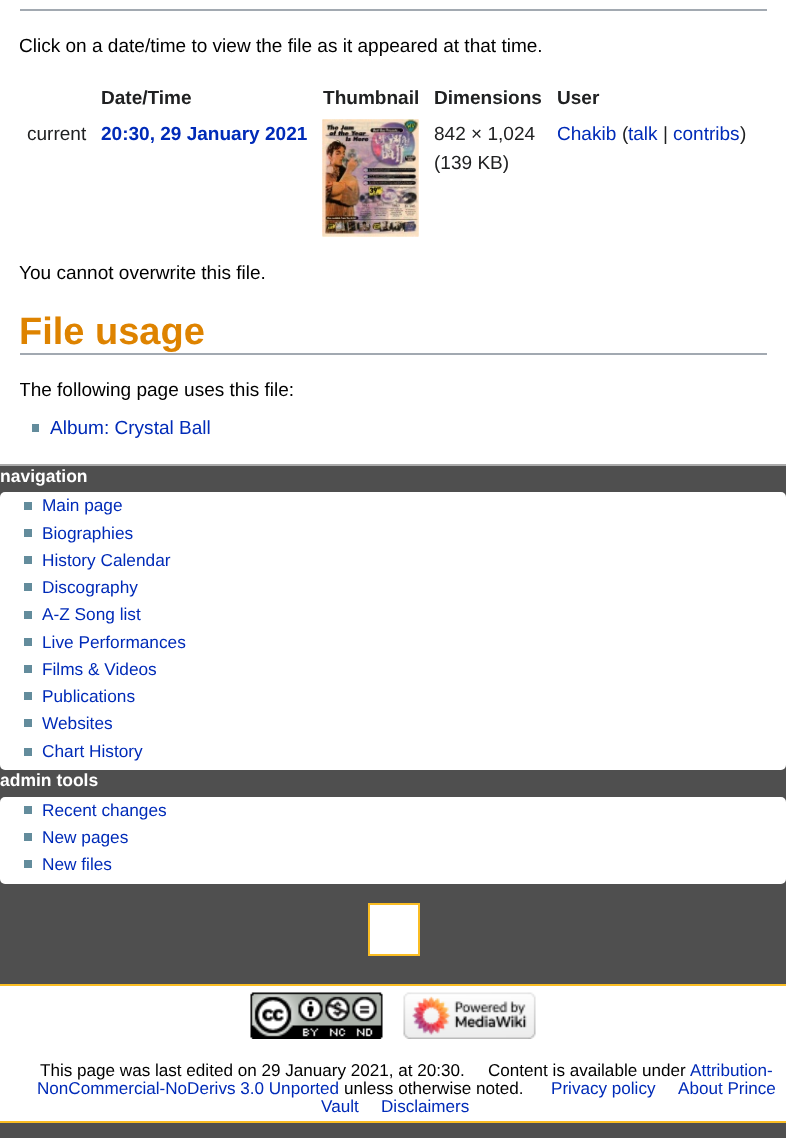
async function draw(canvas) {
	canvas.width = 786;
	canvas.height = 1138;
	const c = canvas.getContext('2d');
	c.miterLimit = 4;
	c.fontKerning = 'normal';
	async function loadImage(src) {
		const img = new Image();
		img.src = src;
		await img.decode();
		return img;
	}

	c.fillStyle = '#4f4f4f';
	c.fillRect(0, 0, 786, 1138);
	for (const [x, y, w, h, color] of [
		[0, 0, 786, 464, '#fff'],
		[0, 464, 786, 2, '#aaa'],
		[20, 9, 747, 2, '#a2a9b1'],
	]) {
		c.fillStyle = color;
		c.fillRect(x, y, w, h);
	}
	c.font = '19.05px Liberation Sans';
	c.fillStyle = '#000';
	c.fillText('Click on a date/time to view the file as it appeared at that time.', 19, 52);
	c.font = 'bold 19.05px Liberation Sans';
	c.fillStyle = '#202122';
	for (const [text, x, y] of [
		['Date/Time', 101, 104],
		['Thumbnail', 323, 104],
		['Dimensions', 434, 104],
		['User', 557, 104],
	]) {
		c.fillText(text, x, y);
	}
	c.font = '19.05px Liberation Sans';
	c.fillText('current', 27, 140);
	c.font = 'bold 19.05px Liberation Sans';
	c.fillStyle = '#002bb8';
	c.fillText('20:30, 29 January 2021', 101, 140);
	c.drawImage(await loadImage('img1.png'), 322, 119, 97, 118);
	c.drawImage(await loadImage('img2.png'), 322, 119, 97, 118);
	c.font = '19.05px Liberation Sans';
	c.fillStyle = '#202122';
	c.fillText('842 × 1,024', 434, 140);
	c.fillText('(139 KB)', 434, 169);
	c.fillStyle = '#002bb8';
	c.fillText('Chakib', 557, 140);
	c.fillStyle = '#202122';
	c.fillText('(', 622, 140);
	c.fillStyle = '#002bb8';
	c.fillText('talk', 628, 140);
	c.fillStyle = '#202122';
	c.fillText('|', 663, 140);
	c.fillStyle = '#002bb8';
	c.fillText('contribs', 673, 140);
	c.fillStyle = '#202122';
	c.fillText(')', 740, 140);
	c.fillStyle = '#000';
	c.fillText('You cannot overwrite this file.', 19, 279);
	c.fillStyle = '#a2a9b1';
	c.fillRect(20, 353, 747, 2);
	c.font = 'bold 38px Liberation Sans';
	c.fillStyle = '#de8300';
	c.fillText('File usage', 19, 344);
	c.save();
	c.beginPath();
	c.rect(20, 0, 747, 446);
	c.clip();
	c.font = '19.05px Liberation Sans';
	c.fillStyle = '#000';
	c.fillText('The following page uses this file:', 19, 396);
	c.restore();
	c.fillStyle = '#638c9c';
	c.fillRect(32, 424, 7, 8);
	c.font = '19.05px Liberation Sans';
	c.fillStyle = '#002bb8';
	c.fillText('Album: Crystal Ball', 50, 434);
	c.font = 'bold 17.5px Liberation Sans';
	c.fillStyle = '#fff';
	c.fillText('navigation', 0, 482);
	c.beginPath();
	c.roundRect(0, 492, 786, 278, 5);
	c.fill();
	c.fillStyle = '#638c9c';
	c.fillRect(24, 502, 8, 8);
	c.font = '17.25px Liberation Sans';
	c.fillStyle = '#002bb8';
	c.fillText('Main page', 42, 511);
	c.fillStyle = '#638c9c';
	c.fillRect(24, 529, 8, 8);
	c.fillStyle = '#002bb8';
	c.fillText('Biographies', 42, 539);
	c.fillStyle = '#638c9c';
	c.fillRect(24, 556, 8, 8);
	c.fillStyle = '#002bb8';
	c.fillText('History Calendar', 42, 566);
	c.fillStyle = '#638c9c';
	c.fillRect(24, 583, 8, 8);
	c.fillStyle = '#002bb8';
	c.fillText('Discography', 42, 593);
	c.fillStyle = '#638c9c';
	c.fillRect(24, 611, 8, 8);
	c.fillStyle = '#002bb8';
	c.fillText('A-Z Song list', 42, 620);
	c.fillStyle = '#638c9c';
	c.fillRect(24, 638, 8, 8);
	c.fillStyle = '#002bb8';
	c.fillText('Live Performances', 42, 648);
	c.fillStyle = '#638c9c';
	c.fillRect(24, 665, 8, 8);
	c.fillStyle = '#002bb8';
	c.fillText('Films & Videos', 42, 675);
	c.fillStyle = '#638c9c';
	c.fillRect(24, 692, 8, 8);
	c.fillStyle = '#002bb8';
	c.fillText('Publications', 42, 702);
	c.fillStyle = '#638c9c';
	c.fillRect(24, 719, 8, 8);
	c.fillStyle = '#002bb8';
	c.fillText('Websites', 42, 729);
	c.fillStyle = '#638c9c';
	c.fillRect(24, 748, 8, 8);
	c.fillStyle = '#002bb8';
	c.fillText('Chart History', 42, 757);
	c.font = 'bold 17.5px Liberation Sans';
	c.fillStyle = '#fff';
	c.fillText('admin tools', 0, 786);
	c.beginPath();
	c.roundRect(0, 797, 786, 87, 5);
	c.fill();
	c.fillStyle = '#638c9c';
	c.fillRect(24, 806, 8, 8);
	c.font = '17.25px Liberation Sans';
	c.fillStyle = '#002bb8';
	c.fillText('Recent changes', 42, 816);
	c.fillStyle = '#638c9c';
	c.fillRect(24, 833, 8, 8);
	c.fillStyle = '#002bb8';
	c.fillText('New pages', 42, 843);
	c.fillStyle = '#638c9c';
	c.fillRect(24, 860, 8, 8);
	c.fillStyle = '#002bb8';
	c.fillText('New files', 42, 870);
	c.fillStyle = '#fff';
	c.beginPath();
	c.rect(369, 904, 50, 51);
	c.fill();
	c.strokeStyle = '#fabd23';
	c.lineWidth = 2;
	c.stroke();
	for (const [x, y, w, h, color] of [
		[0, 986, 786, 135, '#fff'],
		[0, 984, 786, 2, '#fabd23'],
		[0, 1121, 786, 2, '#fabd23'],
	]) {
		c.fillStyle = color;
		c.fillRect(x, y, w, h);
	}
	c.drawImage(await loadImage('img3.png'), 250, 992, 133, 47);
	c.drawImage(await loadImage('img4.png'), 403, 992, 133, 47);
	c.font = '17.1px Liberation Sans';
	c.fillStyle = '#000';
	c.fillText('This page was last edited on 29 January 2021, at 20:30.', 40, 1076);
	c.fillText('Content is available under', 488, 1076);
	c.fillStyle = '#002bb8';
	c.fillText('Attribution-', 690, 1076);
	c.fillText('NonCommercial-NoDerivs 3.0 Unported', 37, 1094);
	c.fillStyle = '#000';
	c.fillText('unless otherwise noted.', 344, 1094);
	c.fillStyle = '#002bb8';
	for (const [text, x, y] of [
		['Privacy policy', 551, 1094],
		['About Prince', 678, 1094],
		['Vault', 321, 1112],
		['Disclaimers', 381, 1112],
	]) {
		c.fillText(text, x, y);
	}
}

draw(document.querySelector('canvas'));
